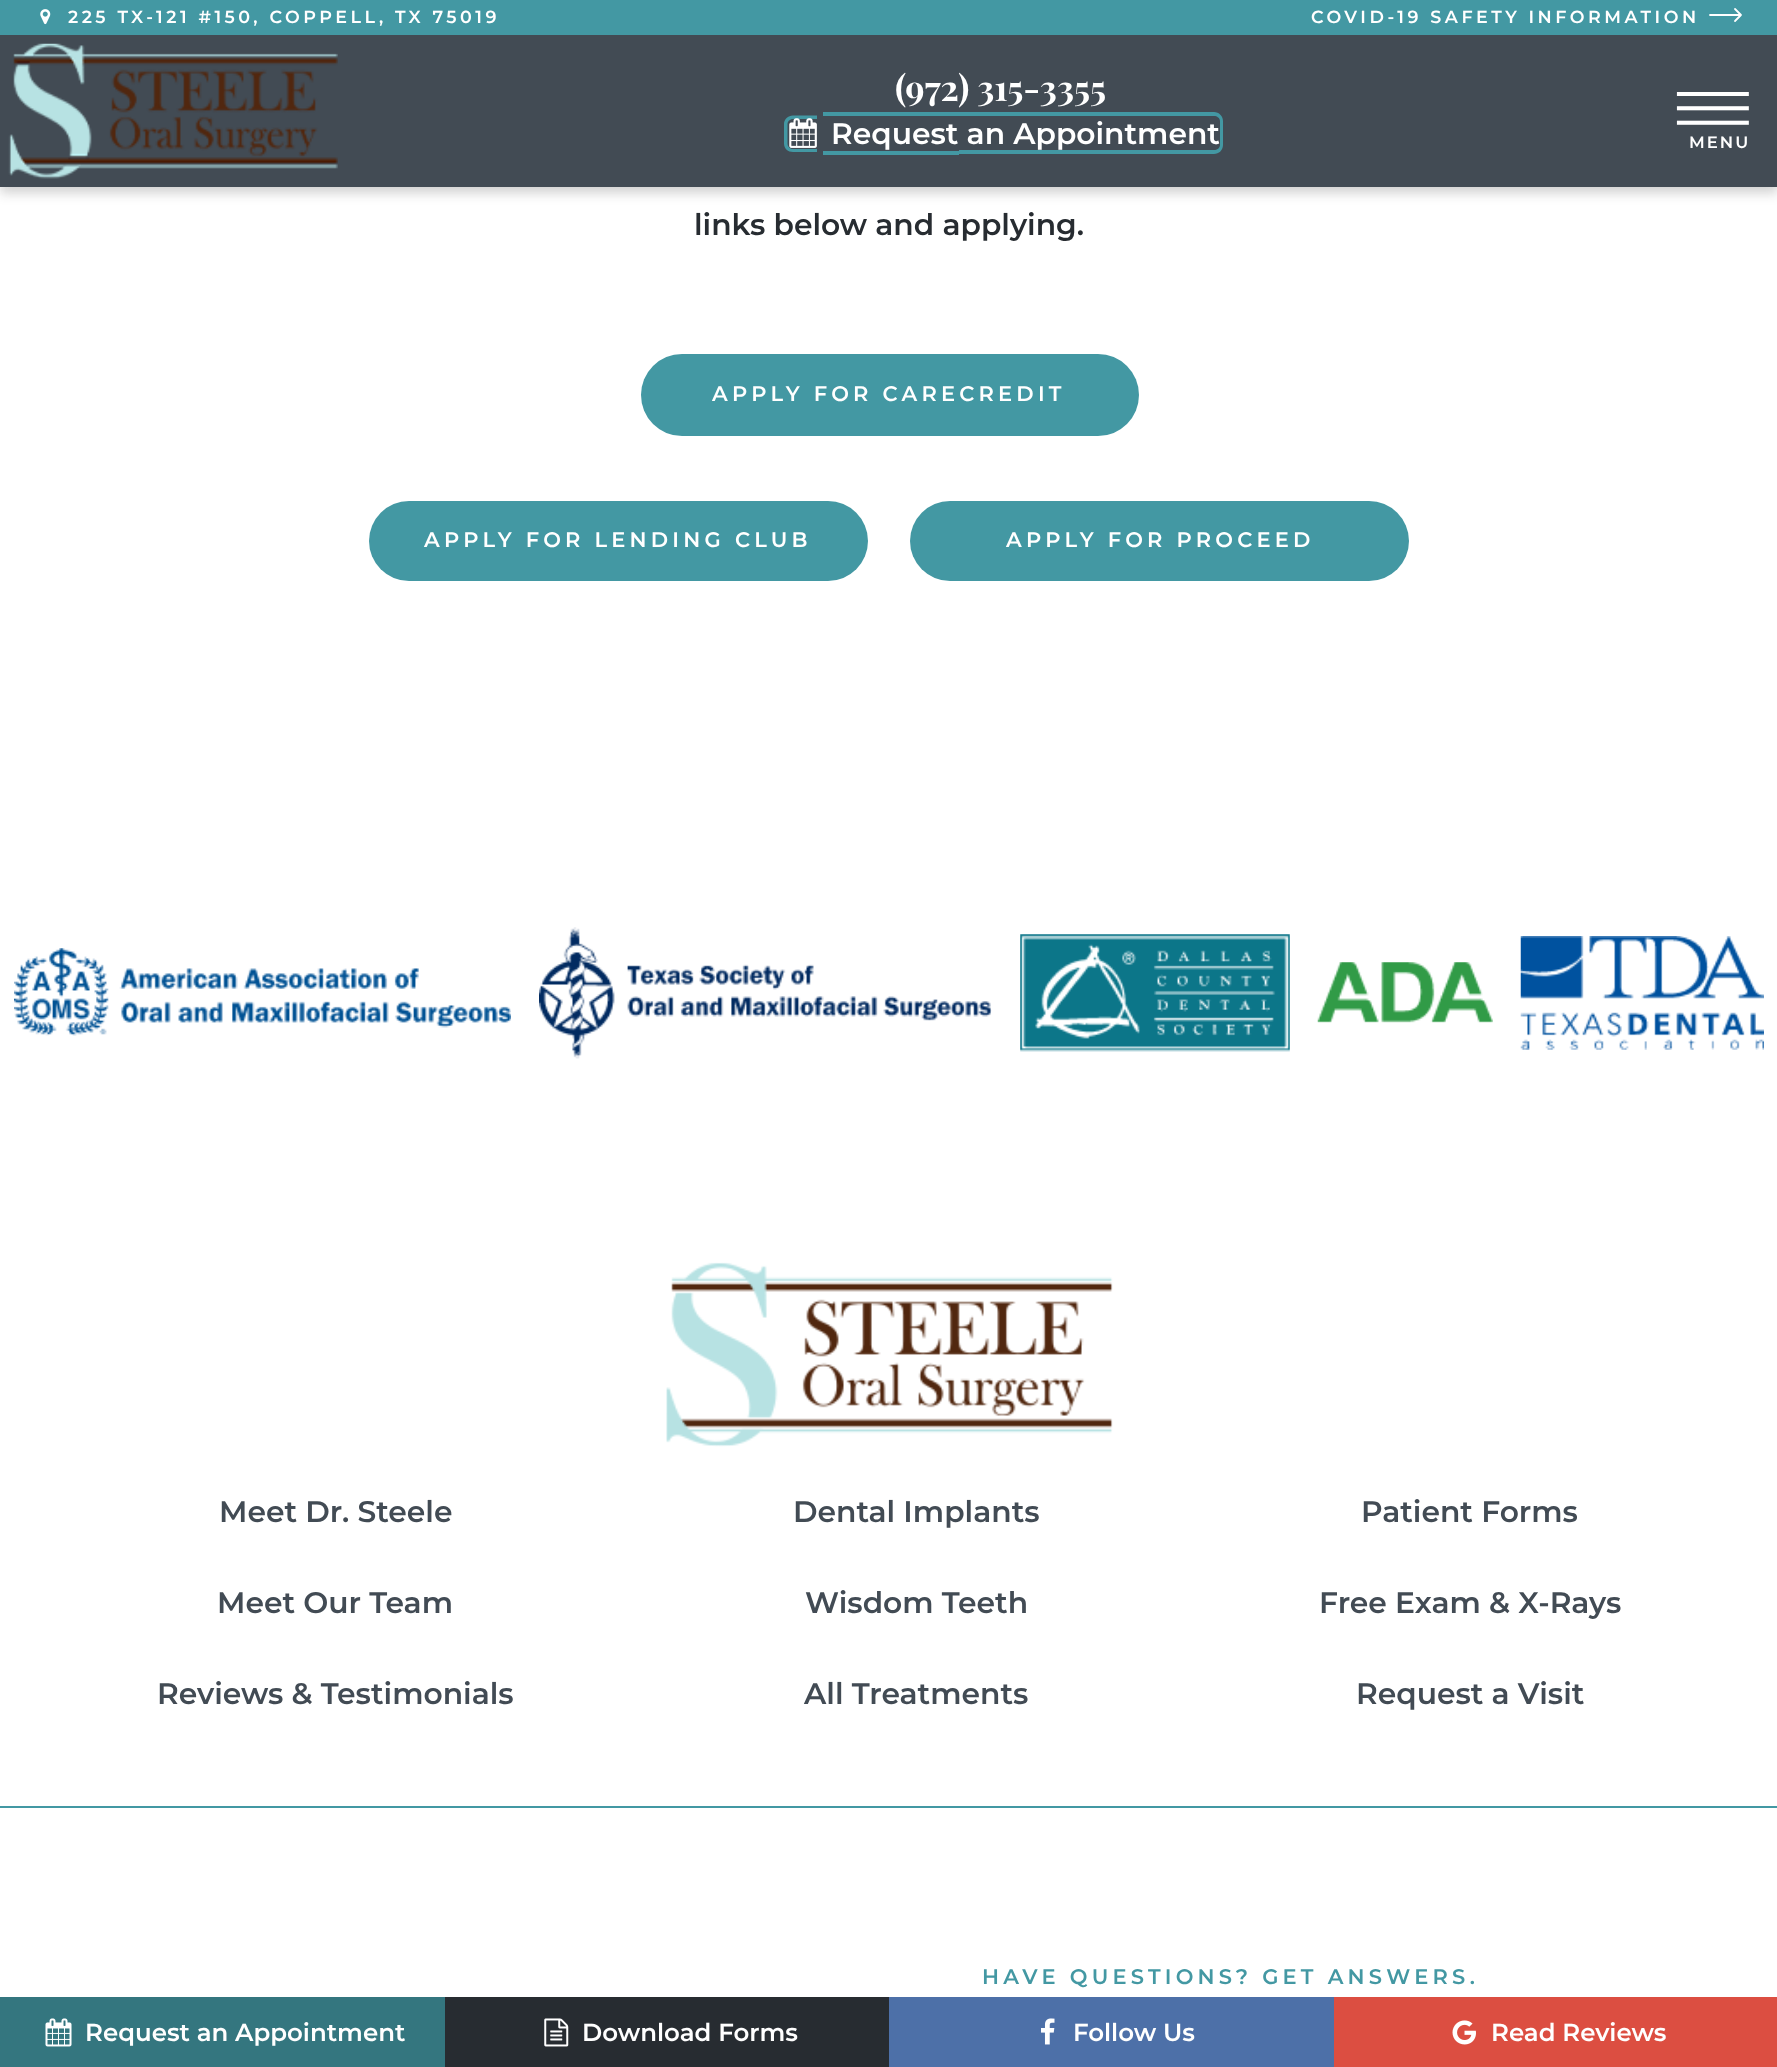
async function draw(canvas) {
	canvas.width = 1777;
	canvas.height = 2067;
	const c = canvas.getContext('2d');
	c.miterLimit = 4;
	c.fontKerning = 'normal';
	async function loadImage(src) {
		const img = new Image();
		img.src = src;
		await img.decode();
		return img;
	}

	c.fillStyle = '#fff';
	c.fillRect(0, 0, 1777, 2067);
	c.fillStyle = '#18171833';
	c.filter = 'blur(6px)';
	c.beginPath();
	c.rect(0, 5, 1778, 188);
	c.fill();
	c.filter = 'none';
	c.fillStyle = '#424b54';
	c.fillRect(0, 35, 1777, 152);
	c.fillStyle = '#4398a3';
	c.fillRect(0, 0, 1777, 35);
	c.drawImage(await loadImage('img1.png'), 40, 9, 11, 16);
	c.letterSpacing = '3.5px';
	c.font = '100 17.5px Montserrat';
	c.fillStyle = '#fff';
	c.fillText('225 TX-121 #150, COPPELL, TX 75019', 68, 23);
	c.fillText('COVID-19 SAFETY INFORMATION', 1311, 23);
	c.beginPath();
	c.moveTo(1735, 9);
	c.lineTo(1741, 15);
	c.lineTo(1735, 21);
	c.moveTo(1741, 15);
	c.lineTo(1710, 15);
	c.strokeStyle = '#fff';
	c.lineWidth = 1.8;
	c.lineCap = 'round';
	c.lineJoin = 'round';
	c.stroke();
	c.drawImage(await loadImage('img2.png'), 8, 43, 330, 136);
	c.letterSpacing = '0px';
	c.font = 'bold 35px Playfair Display';
	c.fillText('(972) 315-3355', 895, 101);
	c.fillStyle = '#4398a3';
	c.beginPath();
	c.moveTo(793, 115.5);
	c.lineTo(817, 115.5);
	c.lineTo(817, 152);
	c.lineTo(793, 152);
	c.bezierCurveTo(788, 152, 784, 148.5, 784, 143.5);
	c.lineTo(784, 124);
	c.bezierCurveTo(784, 119.5, 788, 115.5, 793, 115.5);
	c.closePath();
	c.moveTo(793, 119);
	c.lineTo(817, 119);
	c.lineTo(817, 149);
	c.lineTo(793, 149);
	c.bezierCurveTo(790, 149, 787.5, 146.5, 787.5, 143.5);
	c.lineTo(787.5, 124);
	c.bezierCurveTo(787.5, 121.5, 790, 119, 793, 119);
	c.closePath();
	c.fill('evenodd');
	c.fillRect(823, 112, 136, 4);
	c.fillRect(823, 151, 136, 4);
	c.beginPath();
	c.moveTo(959, 112);
	c.lineTo(1214, 112);
	c.bezierCurveTo(1219, 112, 1223, 116, 1223, 121);
	c.lineTo(1223, 145);
	c.bezierCurveTo(1223, 150, 1219, 154, 1214, 154);
	c.lineTo(959, 154);
	c.closePath();
	c.moveTo(959, 116);
	c.lineTo(1214, 116);
	c.bezierCurveTo(1217, 116, 1220, 118, 1220, 121);
	c.lineTo(1220, 145);
	c.bezierCurveTo(1220, 148, 1217, 150, 1214, 150);
	c.lineTo(959, 150);
	c.closePath();
	c.fill('evenodd');
	c.drawImage(await loadImage('img3.png'), 789, 118, 28, 30);
	c.font = '100 29.75px Montserrat';
	c.fillStyle = '#fff';
	c.fillText('Request an Appointment', 831, 144);
	c.letterSpacing = '-1.5px';
	c.font = '79px Liberation Serif';
	c.save();
	c.translate(1694, 86);
	c.rotate(90 * Math.PI / 180);
	c.fillText('|||', 0, 0);
	c.restore();
	c.letterSpacing = '2px';
	c.font = '100 16.5px Montserrat';
	c.fillText('MENU', 1689, 148);
	c.letterSpacing = '0px';
	c.font = '100 29.75px Montserrat';
	c.fillStyle = '#272c31';
	c.fillText('links below and applying.', 694, 235);
	c.fillStyle = '#4398a3';
	c.beginPath();
	c.roundRect(641, 354, 498, 82, 41);
	c.fill();
	c.letterSpacing = '4.2px';
	c.font = '100 21px Montserrat';
	c.fillStyle = '#fff';
	c.fillText('APPLY FOR CARECREDIT', 712, 401);
	c.fillStyle = '#4398a3';
	c.beginPath();
	c.roundRect(369, 501, 499, 80, 40);
	c.fill();
	c.fillStyle = '#fff';
	c.fillText('APPLY FOR LENDING CLUB', 424, 547);
	c.fillStyle = '#4398a3';
	c.beginPath();
	c.roundRect(910, 501, 499, 80, 40);
	c.fill();
	c.fillStyle = '#fff';
	c.fillText('APPLY FOR PROCEED', 1006, 547);
	c.drawImage(await loadImage('img4.png'), 14, 948, 497, 88);
	c.drawImage(await loadImage('img5.png'), 539, 927, 453, 132);
	c.drawImage(await loadImage('img6.png'), 1020, 934, 270, 118);
	c.drawImage(await loadImage('img7.png'), 1317, 962, 176, 61);
	c.drawImage(await loadImage('img8.png'), 1520, 936, 244, 114);
	c.drawImage(await loadImage('img9.png'), 666, 1262, 447, 185);
	c.letterSpacing = '0px';
	c.font = '100 29.75px Montserrat';
	c.fillStyle = '#424b54';
	for (const [text, x, y] of [
		['Meet Dr. Steele', 219, 1522],
		['Meet Our Team', 217, 1613],
		['Reviews & Testimonials', 157, 1704],
		['Dental Implants', 793, 1522],
		['Wisdom Teeth', 805, 1613],
		['All Treatments', 804, 1704],
		['Patient Forms', 1361, 1522],
		['Free Exam & X-Rays', 1319, 1613],
		['Request a Visit', 1356, 1704],
	]) {
		c.fillText(text, x, y);
	}
	c.fillStyle = '#4398a3';
	c.fillRect(0, 1806, 1777, 2);
	c.letterSpacing = '4.2px';
	c.font = '100 21px Montserrat';
	c.fillText('HAVE QUESTIONS? GET ANSWERS.', 982, 1984);
	c.fillStyle = '#34767f';
	c.fillRect(0, 1997, 445, 70);
	c.drawImage(await loadImage('img10.png'), 45, 2018, 27, 29);
	c.letterSpacing = '0px';
	c.font = '100 24.5px Montserrat';
	c.fillStyle = '#fff';
	c.fillText('Request an Appointment', 85, 2041);
	c.fillStyle = '#272c31';
	c.fillRect(445, 1997, 444, 70);
	c.drawImage(await loadImage('img11.png'), 544, 2018, 25, 29);
	c.fillStyle = '#fff';
	c.fillText('Download Forms', 582, 2041);
	c.fillStyle = '#4d70a8';
	c.fillRect(889, 1997, 445, 70);
	c.drawImage(await loadImage('img12.png'), 1041, 2018, 14, 27);
	c.fillStyle = '#fff';
	c.fillText('Follow Us', 1073, 2041);
	c.fillStyle = '#dc4e41';
	c.fillRect(1334, 1997, 443, 70);
	c.drawImage(await loadImage('img13.png'), 1452, 2020, 24, 25);
	c.fillStyle = '#fff';
	c.fillText('Read Reviews', 1491, 2041);
}

draw(document.querySelector('canvas'));
